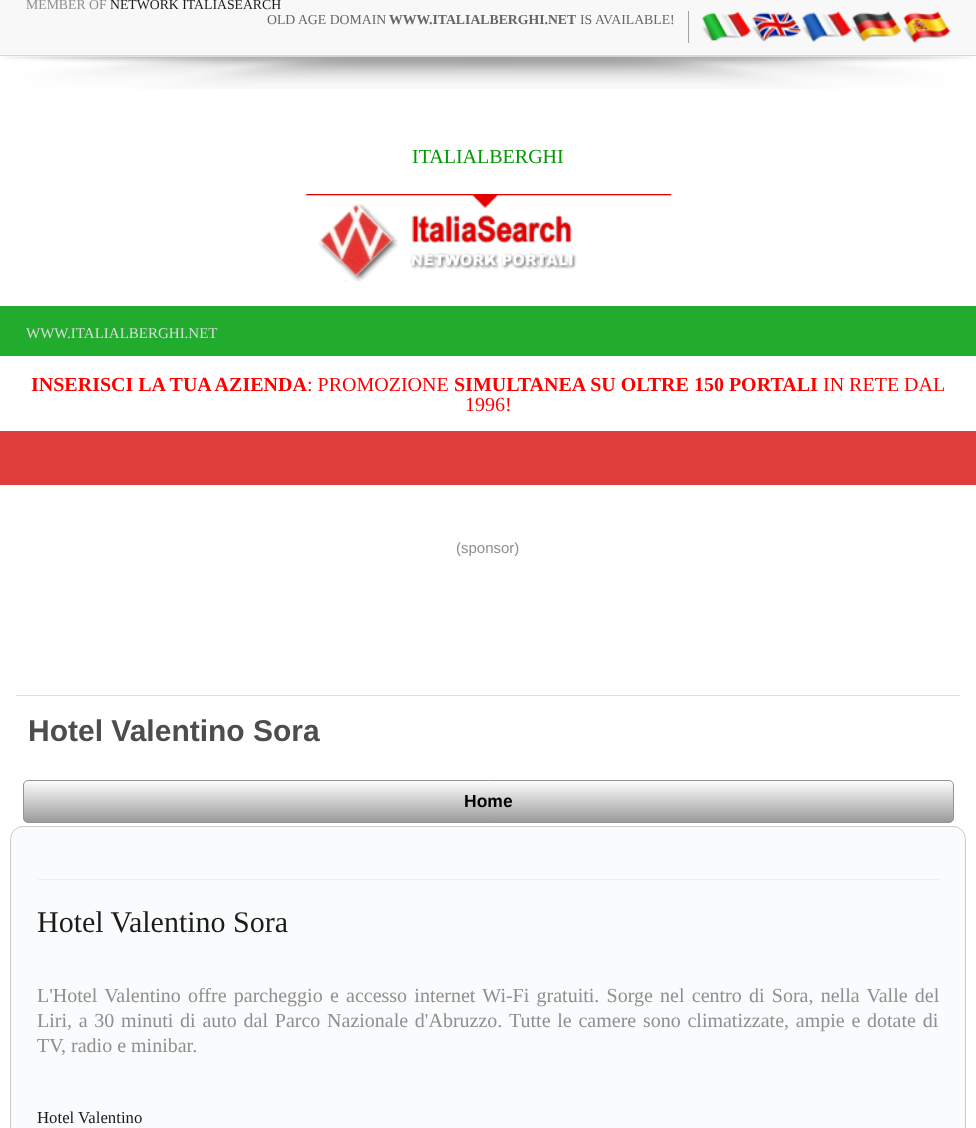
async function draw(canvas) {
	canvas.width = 976;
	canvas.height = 1128;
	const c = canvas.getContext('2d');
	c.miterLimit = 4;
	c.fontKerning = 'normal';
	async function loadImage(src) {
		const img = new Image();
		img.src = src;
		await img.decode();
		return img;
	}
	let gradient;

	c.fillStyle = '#fff';
	c.fillRect(0, 0, 976, 1128);
	c.fillStyle = '#f8f8f8';
	c.fillRect(0, 0, 976, 55);
	c.fillStyle = '#d8d8d8';
	c.fillRect(0, 55, 976, 1);
	c.font = '13.75px Liberation Serif';
	c.fillStyle = '#8f8f8f';
	c.fillText('MEMBER OF', 26, 9);
	c.fillStyle = '#1b1b1b';
	c.fillText('NETWORK ITALIASEARCH', 110, 9);
	c.fillStyle = '#666';
	c.fillText('OLD AGE DOMAIN', 267, 24);
	c.font = 'bold 13.75px Liberation Serif';
	c.fillText('WWW.ITALIALBERGHI.NET', 389, 24);
	c.font = '13.75px Liberation Serif';
	c.fillText('IS AVAILABLE!', 580, 24);
	c.fillStyle = '#a3a3a3';
	c.fillRect(688, 11, 1, 32);
	c.drawImage(await loadImage('img1.png'), 702, 11, 50, 30);
	c.drawImage(await loadImage('img2.png'), 752, 11, 50, 31);
	c.drawImage(await loadImage('img3.png'), 802, 11, 50, 31);
	c.drawImage(await loadImage('img4.png'), 852, 11, 50, 31);
	c.drawImage(await loadImage('img5.png'), 903, 11, 48, 32);
	c.drawImage(await loadImage('img6.png'), 3, 56, 969, 33);
	c.font = '20px Liberation Serif';
	c.fillStyle = '#090';
	c.fillText('ITALIALBERGHI', 412, 163);
	c.drawImage(await loadImage('img7.png'), 306, 194, 366, 88);
	c.fillStyle = '#21ac2d';
	c.fillRect(0, 306, 976, 50);
	c.font = '15px Liberation Serif';
	c.fillStyle = '#dadada';
	c.fillText('WWW.ITALIALBERGHI.NET', 26, 338);
	c.font = 'bold 20px Liberation Serif';
	c.fillStyle = '#f00';
	c.fillText('INSERISCI LA TUA AZIENDA', 31, 391);
	c.font = '20px Liberation Serif';
	c.fillText(': PROMOZIONE', 307, 391);
	c.font = 'bold 20px Liberation Serif';
	c.fillText('SIMULTANEA SU OLTRE 150 PORTALI', 454, 391);
	c.font = '20px Liberation Serif';
	c.fillText('IN RETE DAL', 823, 391);
	c.fillText('1996!', 465, 411);
	c.fillStyle = '#e03d3d';
	c.fillRect(0, 431, 976, 54);
	c.font = '15px Liberation Sans';
	c.fillStyle = '#8f8f8f';
	c.fillText('(sponsor)', 456, 553);
	c.fillStyle = '#e0e0e0';
	c.fillRect(16, 695, 944, 1);
	c.font = 'bold 30px Liberation Sans';
	c.fillStyle = '#4d4d4d';
	c.fillText('Hotel Valentino Sora', 28, 741);
	gradient = c.createLinearGradient(488, 780, 488, 823);
	gradient.addColorStop(0, '#fff');
	gradient.addColorStop(1, '#999');
	c.fillStyle = gradient;
	c.beginPath();
	c.roundRect(23.5, 780.5, 930, 42, 4.5);
	c.fill();
	c.strokeStyle = '#949494';
	c.stroke();
	c.font = 'bold 17.5px Liberation Sans';
	c.fillStyle = '#000';
	c.fillText('Home', 464, 807);
	c.fillStyle = '#fafbfc';
	c.beginPath();
	c.roundRect(10.5, 826.5, 955, 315, 12.5);
	c.fill();
	c.strokeStyle = '#cbcbcb';
	c.stroke();
	c.fillStyle = '#eee';
	c.fillRect(38, 879, 901, 1);
	c.font = '30px Liberation Serif';
	c.fillStyle = '#1b1b1b';
	c.fillText('Hotel Valentino Sora', 37, 932);
	c.wordSpacing = '2.25px';
	c.font = '20px Liberation Serif';
	c.fillStyle = '#8f8f8f';
	c.fillText('L\'Hotel Valentino offre parcheggio e accesso internet Wi-Fi gratuiti. Sorge nel centro di Sora, nella Valle del', 37, 1002);
	c.wordSpacing = '1.75px';
	c.fillText('Liri, a 30 minuti di auto dal Parco Nazionale d\'Abruzzo.', 37, 1027);
	c.fillText('Tutte le camere sono climatizzate, ampie e dotate di', 509, 1027);
	c.wordSpacing = '0px';
	c.fillText('TV, radio e minibar.', 37, 1052);
	c.font = '16.75px Liberation Serif';
	c.fillStyle = '#1b1b1b';
	c.fillText('Hotel Valentino', 37, 1123);
}

draw(document.querySelector('canvas'));
